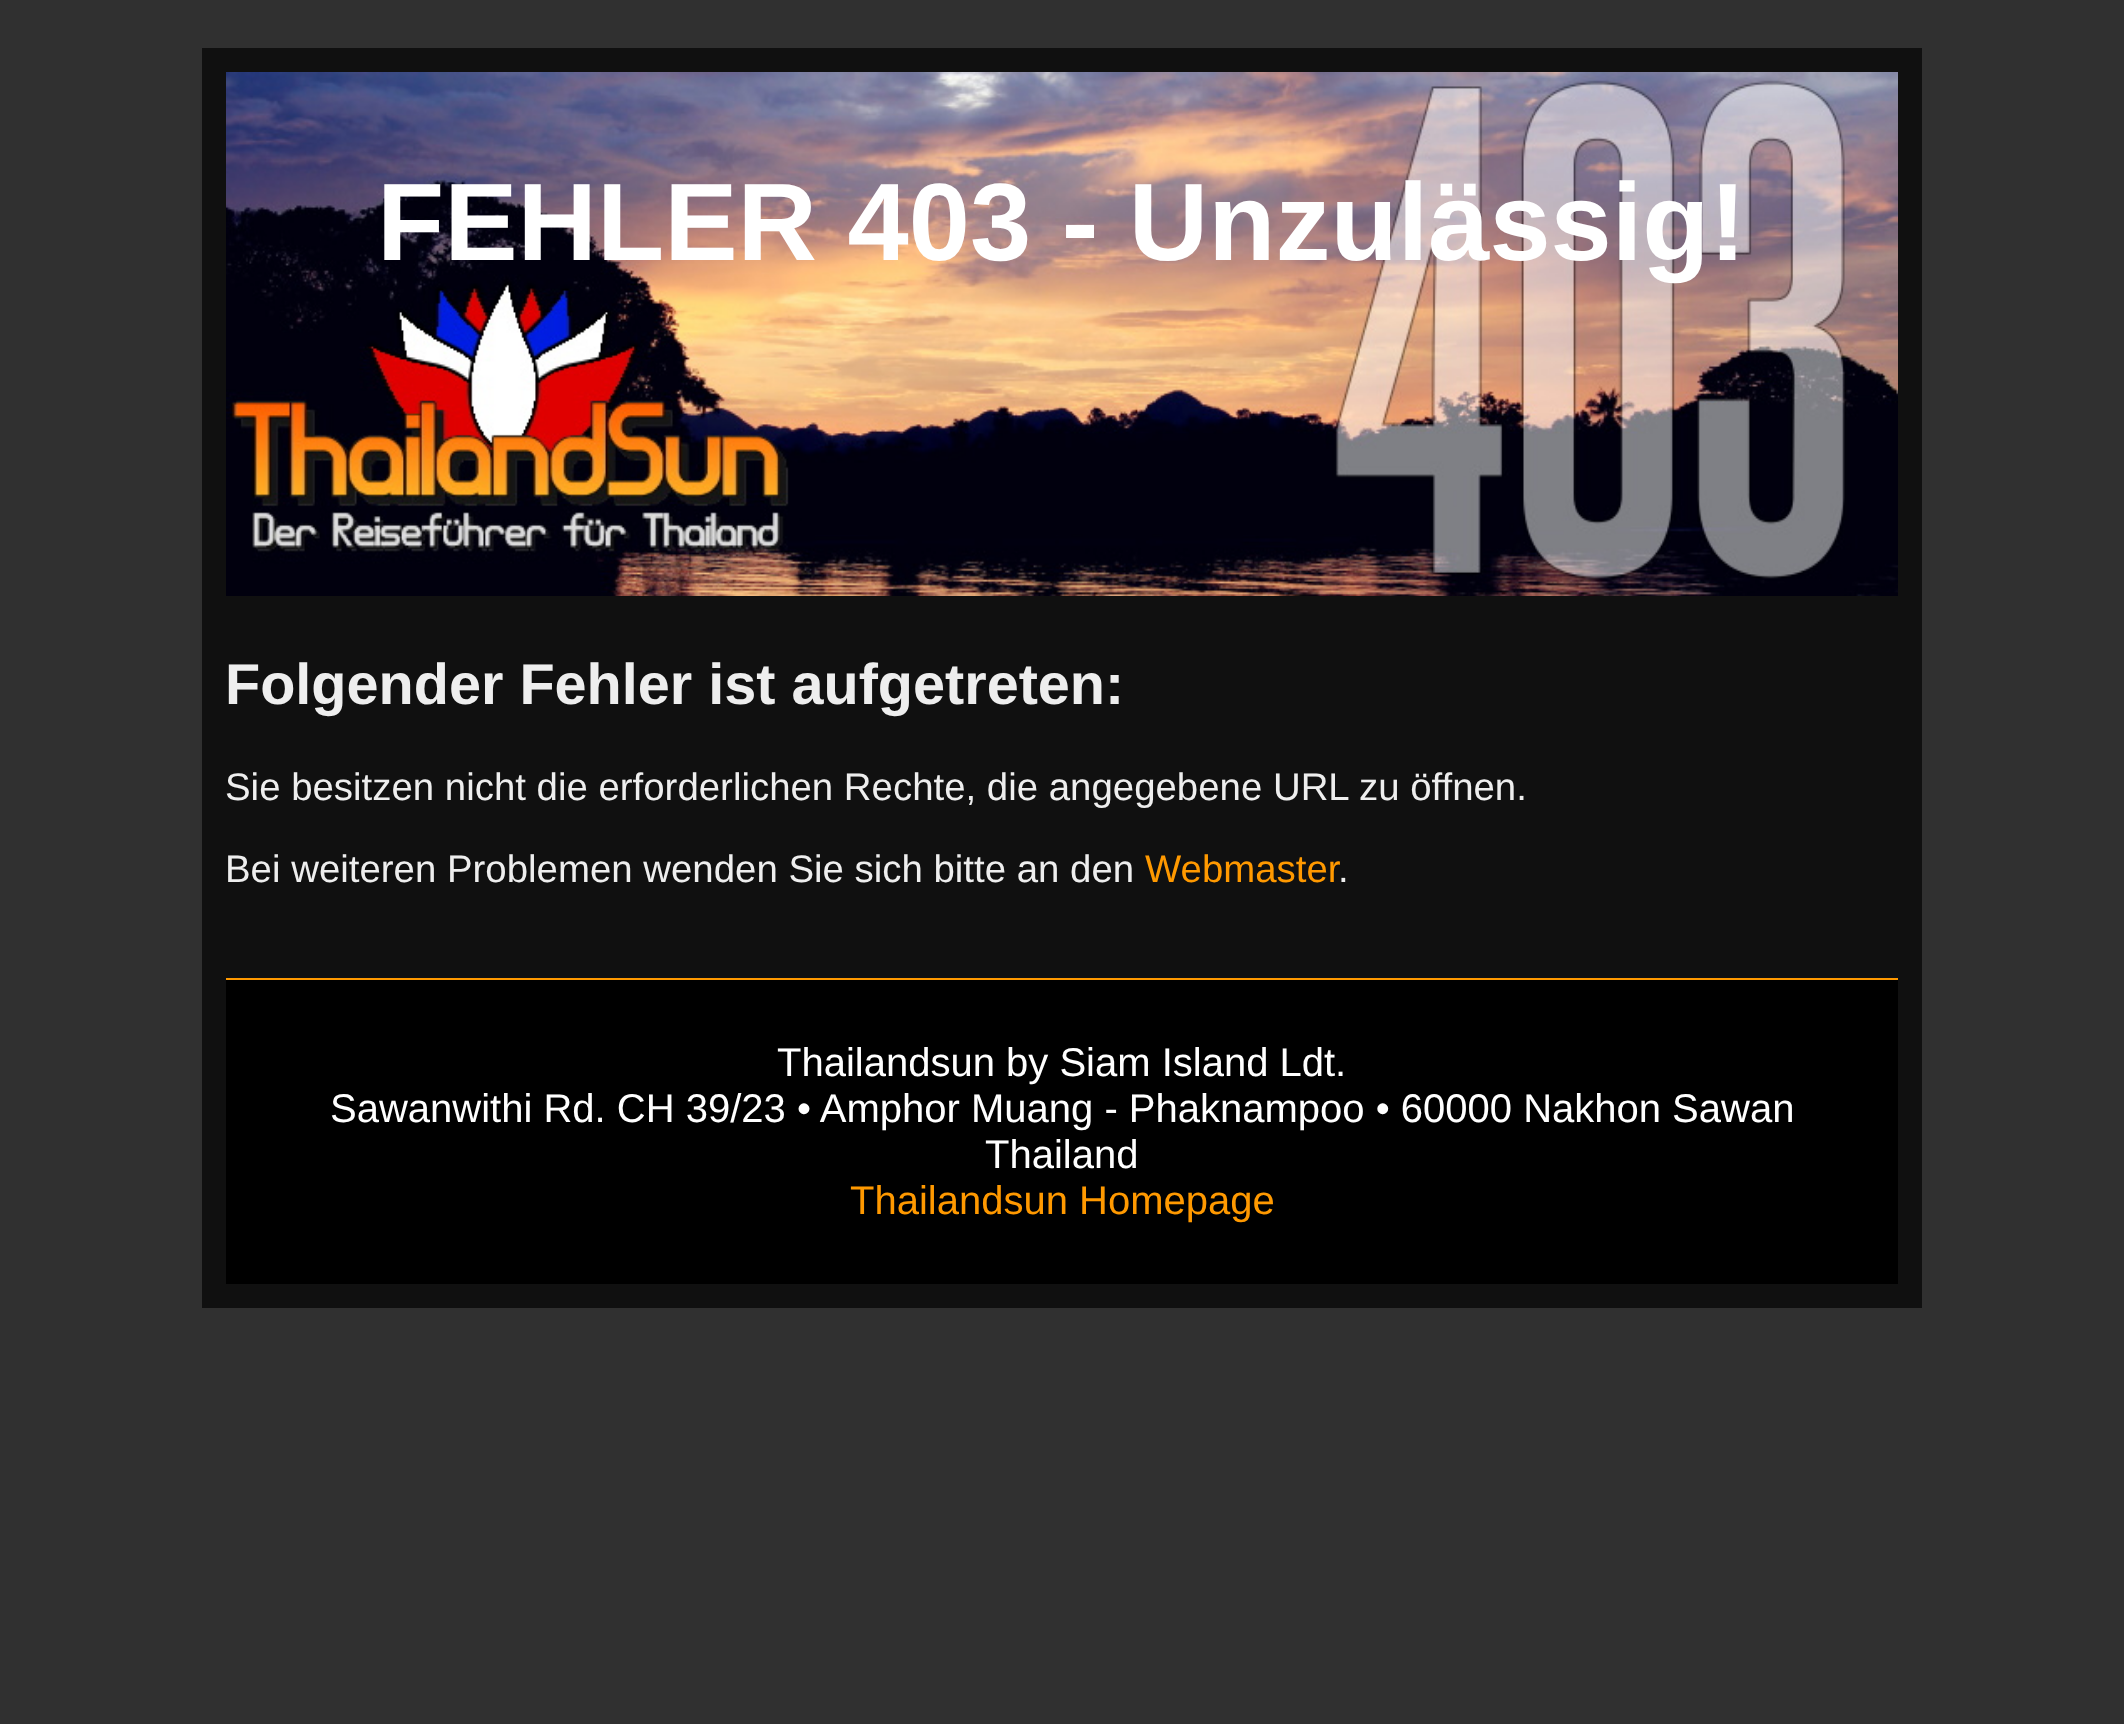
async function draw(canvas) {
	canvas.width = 2124;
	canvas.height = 1724;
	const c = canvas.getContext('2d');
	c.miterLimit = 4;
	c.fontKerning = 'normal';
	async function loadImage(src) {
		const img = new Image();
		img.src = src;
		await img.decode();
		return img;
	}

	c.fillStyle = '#303030';
	c.fillRect(0, 0, 2124, 1724);
	c.fillStyle = '#101010';
	c.fillRect(202, 48, 1720, 1260);
	c.drawImage(await loadImage('img1.png'), 226, 72, 1672, 524);
	c.font = 'bold 110px Liberation Sans';
	c.fillStyle = '#fff';
	c.fillText('FEHLER 403 - Unzulässig!', 377, 260);
	c.font = 'bold 57.6px Liberation Sans';
	c.fillStyle = '#eee';
	c.fillText('Folgender Fehler ist aufgetreten:', 225, 704);
	c.font = '38.4px Liberation Sans';
	c.fillText('Sie besitzen nicht die erforderlichen Rechte, die angegebene URL zu öffnen.', 225, 800);
	c.fillText('Bei weiteren Problemen wenden Sie sich bitte an den', 225, 882);
	c.fillStyle = '#f90';
	c.fillText('Webmaster', 1145, 882);
	c.fillStyle = '#eee';
	c.fillText('.', 1338, 882);
	c.fillStyle = '#000';
	c.fillRect(226, 980, 1672, 304);
	c.fillStyle = '#f90';
	c.fillRect(226, 978, 1672, 2);
	c.font = '40px Liberation Sans';
	c.fillStyle = '#fff';
	for (const [text, x, y] of [
		['Thailandsun by Siam Island Ldt.', 777, 1076],
		['Sawanwithi Rd. CH 39/23 • Amphor Muang - Phaknampoo • 60000 Nakhon Sawan', 330, 1122],
		['Thailand', 985, 1168],
	]) {
		c.fillText(text, x, y);
	}
	c.fillStyle = '#f90';
	c.fillText('Thailandsun Homepage', 850, 1214);
}

draw(document.querySelector('canvas'));
